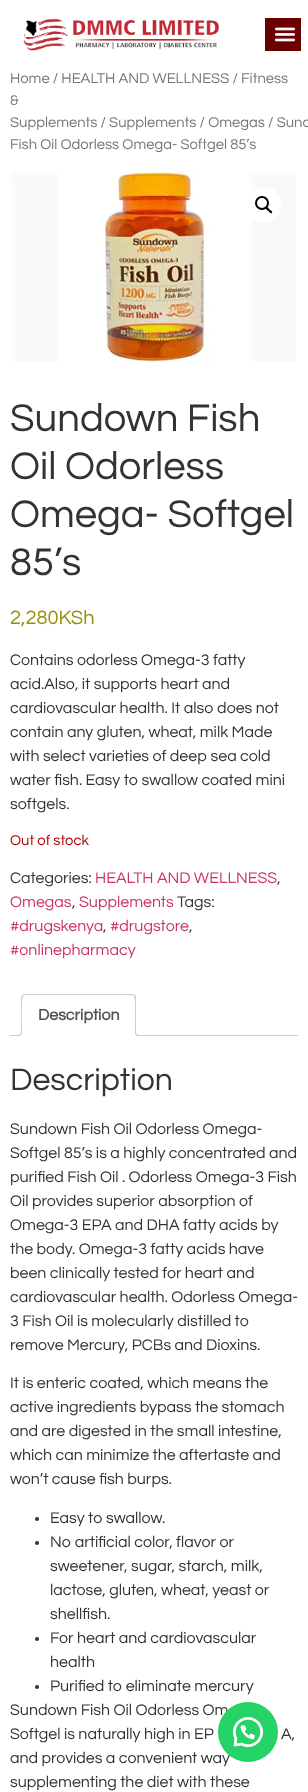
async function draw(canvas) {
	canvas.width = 308;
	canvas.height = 1792;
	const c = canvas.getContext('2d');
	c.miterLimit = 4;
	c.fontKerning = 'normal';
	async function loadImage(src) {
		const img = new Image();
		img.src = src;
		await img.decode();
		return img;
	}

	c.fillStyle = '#fff';
	c.fillRect(0, 0, 308, 1792);
	c.drawImage(await loadImage('img1.png'), 23, 18, 197, 33);
	c.fillStyle = '#6b0000';
	c.fillRect(265, 18, 36, 33);
	c.drawImage(await loadImage('img2.png'), 274, 27, 22, 15);
	c.font = '14.75px Questrial';
	c.fillStyle = '#767676';
	for (const [text, x, y] of [
		['Home / HEALTH AND WELLNESS / Fitness', 10, 83],
		['&', 10, 105],
		['Supplements / Supplements / Omegas / Sund', 10, 127],
		['Fish Oil Odorless Omega- Softgel 85’s', 10, 149],
	]) {
		c.fillText(text, x, y);
	}
	c.drawImage(await loadImage('img3.png'), 10, 171, 286, 192);
	c.fillStyle = '#fff';
	c.beginPath();
	c.arc(264, 205, 18, 0, 2 * Math.PI);
	c.fill();
	c.beginPath();
	c.arc(262, 203, 6, 0, 2 * Math.PI);
	c.strokeStyle = '#000';
	c.lineWidth = 2;
	c.stroke();
	c.fillStyle = '#000';
	c.beginPath();
	c.moveTo(266, 207.5);
	c.bezierCurveTo(267.5, 206, 269, 209, 269.5, 209.5);
	c.bezierCurveTo(270.5, 210, 273, 212, 272, 213);
	c.bezierCurveTo(270.5, 214, 269, 211.5, 268.5, 211);
	c.bezierCurveTo(267.5, 210.5, 265, 208.5, 266, 207.5);
	c.closePath();
	c.fill();
	c.font = '40px Questrial';
	c.fillStyle = '#333';
	for (const [text, x, y] of [
		['Sundown Fish', 10, 431],
		['Oil Odorless', 10, 479],
		['Omega- Softgel', 10, 527],
		['85’s', 10, 575],
	]) {
		c.fillText(text, x, y);
	}
	c.font = '20px Questrial';
	c.fillStyle = '#958e09';
	c.fillText('2,280KSh', 10, 624);
	c.font = '16px Questrial';
	c.fillStyle = '#333';
	for (const [text, x, y] of [
		['Contains odorless Omega-3 fatty', 10, 665],
		['acid.Also, it supports heart and', 10, 689],
		['cardiovascular health. It also does not', 10, 713],
		['contain any gluten, wheat, milk Made', 10, 737],
		['with select varieties of deep sea cold', 10, 761],
		['water fish. Easy to swallow coated mini', 10, 785],
		['softgels.', 10, 809],
	]) {
		c.fillText(text, x, y);
	}
	c.font = '14.75px Questrial';
	c.fillStyle = '#a00';
	c.fillText('Out of stock', 10, 845);
	c.font = '16px Questrial';
	c.fillStyle = '#333';
	c.fillText('Categories:', 10, 883);
	c.fillStyle = '#c36';
	c.fillText('HEALTH AND WELLNESS', 95, 883);
	c.fillStyle = '#333';
	c.fillText(',', 277, 883);
	c.fillStyle = '#c36';
	c.fillText('Omegas', 10, 907);
	c.fillStyle = '#333';
	c.fillText(',', 72, 907);
	c.fillStyle = '#c36';
	c.fillText('Supplements', 79, 907);
	c.fillStyle = '#333';
	c.fillText('Tags:', 177, 907);
	c.fillStyle = '#c36';
	c.fillText('#drugskenya', 10, 931);
	c.fillStyle = '#333';
	c.fillText(',', 103, 931);
	c.fillStyle = '#c36';
	c.fillText('#drugstore', 110, 931);
	c.fillStyle = '#333';
	c.fillText(',', 189, 931);
	c.fillStyle = '#c36';
	c.fillText('#onlinepharmacy', 10, 955);
	c.fillStyle = '#cfc8d8';
	c.fillRect(10, 1035, 288, 1);
	c.fillStyle = '#fff';
	c.beginPath();
	c.roundRect(21, 994, 115, 42, [4, 4, 0, 0]);
	c.fill();
	c.fillStyle = '#cfc8d8';
	c.beginPath();
	c.moveTo(25, 994);
	c.lineTo(22, 995);
	c.lineTo(23, 996);
	c.lineTo(25, 995);
	c.lineTo(132, 995);
	c.lineTo(134, 996);
	c.lineTo(135, 995);
	c.lineTo(132, 994);
	c.closePath();
	c.fill();
	c.beginPath();
	c.moveTo(136, 1036);
	c.lineTo(136, 998);
	c.bezierCurveTo(136, 997, 136, 996, 135, 995);
	c.lineTo(134, 996);
	c.bezierCurveTo(136, 998, 135, 1030, 135, 1035);
	c.closePath();
	c.fill();
	c.fillStyle = '#fff';
	c.beginPath();
	c.moveTo(136, 1036);
	c.lineTo(135, 1035);
	c.lineTo(22, 1035);
	c.lineTo(21, 1036);
	c.closePath();
	c.fill();
	c.fillStyle = '#cfc8d8';
	c.beginPath();
	c.moveTo(21, 1036);
	c.lineTo(22, 1035);
	c.bezierCurveTo(22, 1030, 21, 998, 23, 996);
	c.lineTo(22, 995);
	c.lineTo(21, 998);
	c.closePath();
	c.fill();
	c.font = 'bold 16px Questrial';
	c.fillStyle = '#515151';
	c.fillText('Description', 38, 1020);
	c.save();
	c.beginPath();
	c.rect(10, 994, 288, 42);
	c.clip();
	c.fillStyle = '#fff';
	c.beginPath();
	c.moveTo(19, 1036);
	c.lineTo(19, 1038);
	c.bezierCurveTo(22.5, 1038, 24, 1036.5, 24, 1033);
	c.lineTo(22, 1033);
	c.bezierCurveTo(21.5, 1034.5, 20.5, 1035.5, 19, 1036);
	c.closePath();
	c.fill();
	c.restore();
	c.fillStyle = '#cfc8d8';
	c.beginPath();
	c.moveTo(17, 1031);
	c.lineTo(22, 1031);
	c.bezierCurveTo(22, 1034.5, 20.5, 1036, 17, 1036);
	c.closePath();
	c.moveTo(17, 1031);
	c.lineTo(21, 1031);
	c.bezierCurveTo(21, 1034, 20, 1035, 17, 1035);
	c.closePath();
	c.fill('evenodd');
	c.save();
	c.beginPath();
	c.rect(10, 994, 288, 42);
	c.clip();
	c.fillStyle = '#fff';
	c.beginPath();
	c.moveTo(133, 1033);
	c.bezierCurveTo(133, 1036.5, 134.5, 1038, 138, 1038);
	c.lineTo(138, 1036);
	c.bezierCurveTo(136.5, 1035.5, 135.5, 1034.5, 135, 1033);
	c.closePath();
	c.fill();
	c.restore();
	c.beginPath();
	c.moveTo(135, 1031);
	c.lineTo(140, 1031);
	c.lineTo(140, 1036);
	c.bezierCurveTo(137.5, 1036, 135, 1035, 135, 1032);
	c.closePath();
	c.moveTo(136, 1031);
	c.lineTo(140, 1031);
	c.lineTo(140, 1035);
	c.bezierCurveTo(138, 1035, 136, 1034.5, 136, 1032);
	c.closePath();
	c.fill('evenodd');
	c.font = '32px Questrial';
	c.fillStyle = '#333';
	c.fillText('Description', 10, 1090);
	c.font = '16px Questrial';
	for (const [text, x, y] of [
		['Sundown Fish Oil Odorless Omega-', 10, 1134],
		['Softgel 85’s is a highly concentrated and', 10, 1158],
		['purified Fish Oil . Odorless Omega-3 Fish', 10, 1182],
		['Oil provides superior absorption of', 10, 1206],
		['Omega-3 EPA and DHA fatty acids by', 10, 1230],
		['the body. Omega-3 fatty acids have', 10, 1254],
		['been clinically tested for heart and', 10, 1278],
		['cardiovascular health. Odorless Omega-', 10, 1302],
		['3 Fish Oil is molecularly distilled to', 10, 1326],
		['remove Mercury, PCBs and Dioxins.', 10, 1350],
		['It is enteric coated, which means the', 10, 1388],
		['active ingredients bypass the stomach', 10, 1412],
		['and are digested in the small intestine,', 10, 1436],
		['which can minimize the aftertaste and', 10, 1460],
		['won’t cause fish burps.', 10, 1484],
	]) {
		c.fillText(text, x, y);
	}
	c.beginPath();
	c.arc(37, 1519, 2, 0, 2 * Math.PI);
	c.fill();
	c.fillText('Easy to swallow.', 50, 1523);
	c.beginPath();
	c.arc(37, 1543, 2, 0, 2 * Math.PI);
	c.fill();
	for (const [text, x, y] of [
		['No artificial color, flavor or', 50, 1547],
		['sweetener, sugar, starch, milk,', 50, 1571],
		['lactose, gluten, wheat, yeast or', 50, 1595],
		['shellfish.', 50, 1619],
	]) {
		c.fillText(text, x, y);
	}
	c.beginPath();
	c.arc(37, 1639, 2, 0, 2 * Math.PI);
	c.fill();
	c.fillText('For heart and cardiovascular', 50, 1643);
	c.fillText('health', 50, 1667);
	c.beginPath();
	c.arc(37, 1687, 2, 0, 2 * Math.PI);
	c.fill();
	for (const [text, x, y] of [
		['Purified to eliminate mercury', 50, 1691],
		['Sundown Fish Oil Odorless Om', 10, 1715],
		['Softgel is naturally high in EP', 10, 1739],
		['A,', 281, 1739],
		['and provides a convenient way', 10, 1763],
		['supplementing the diet with these', 10, 1787],
	]) {
		c.fillText(text, x, y);
	}
	c.fillStyle = '#25d366';
	c.beginPath();
	c.arc(248, 1732, 30, 0, 2 * Math.PI);
	c.fill();
	c.drawImage(await loadImage('img4.png'), 233, 1717, 30, 30);
}

draw(document.querySelector('canvas'));
